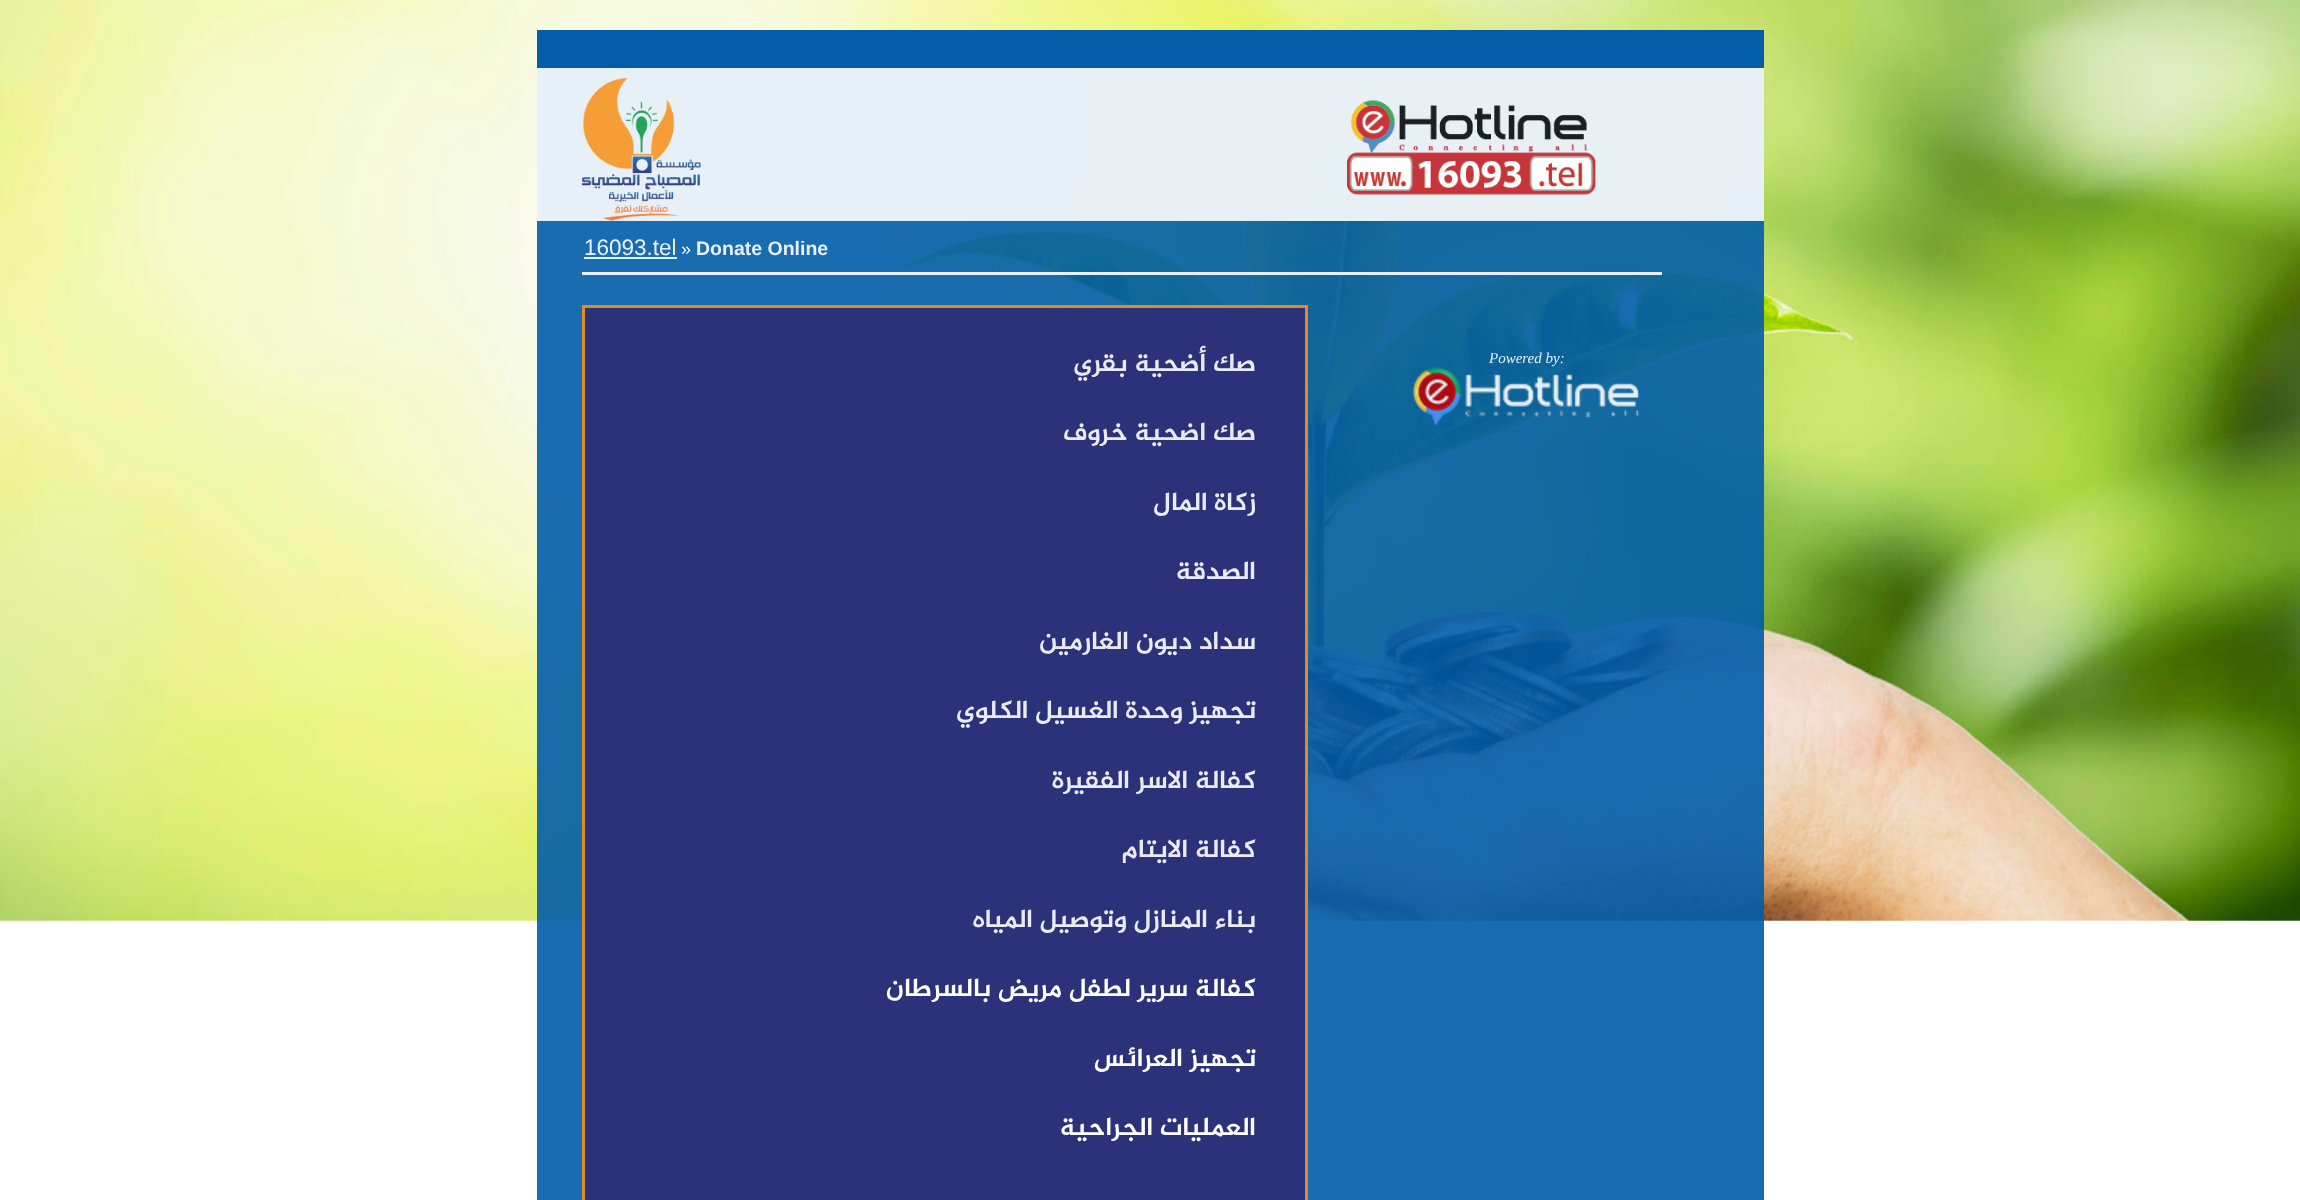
async function draw(canvas) {
	canvas.width = 2300;
	canvas.height = 1200;
	const c = canvas.getContext('2d');
	c.miterLimit = 4;
	c.fontKerning = 'normal';
	async function loadImage(src) {
		const img = new Image();
		img.src = src;
		await img.decode();
		return img;
	}

	c.fillStyle = '#fff';
	c.fillRect(0, 0, 2300, 1200);
	c.drawImage(await loadImage('img1.png'), 0, 0, 2300, 921);
	for (const [x, y, w, h, color] of [
		[537, 30, 1227, 1170, '#015caae6'],
		[537, 30, 1227, 38, '#015caae6'],
		[537, 68, 1227, 153, '#ffffffe6'],
	]) {
		c.fillStyle = color;
		c.fillRect(x, y, w, h);
	}
	c.drawImage(await loadImage('img2.png'), 1347, 100, 249, 95);
	c.drawImage(await loadImage('img3.png'), 582, 78, 119, 143);
	c.fillRect(582, 272, 1080, 3);
	c.font = 'bold 19.5px Liberation Sans';
	c.fillStyle = '#e8f0f7';
	c.fillText('Donate Online', 696, 255);
	c.font = '18px Liberation Sans';
	c.fillStyle = '#fefffd';
	c.fillText('»', 681, 255);
	c.font = '22.5px Liberation Sans';
	c.fillStyle = '#e8f0f7';
	c.fillText('16093.tel', 584, 255);
	c.fillRect(584, 257, 93, 2);
	c.font = 'italic 15px Liberation Serif';
	c.fillText('Powered by:', 1489, 363);
	c.drawImage(await loadImage('img4.png'), 1412, 367, 228, 59);
	c.fillStyle = '#d9be8fe6';
	c.fillRect(585, 308, 720, 892);
	c.fillStyle = '#1a2378e6';
	c.beginPath();
	c.rect(583.5, 306.5, 723, 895);
	c.fill();
	c.strokeStyle = '#e48928';
	c.lineWidth = 3;
	c.stroke();
	c.direction = 'rtl';
	c.font = 'bold 26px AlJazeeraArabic';
	c.fillStyle = '#eaeaf2';
	for (const [text, x, y] of [
		['صك أضحية بقري', 1256, 371],
		['صك اضحية خروف', 1256, 440],
		['زكاة المال', 1256, 510],
		['الصدقة', 1256, 579],
		['سداد ديون الغارمين', 1256, 649],
		['تجهيز وحدة الغسيل الكلوي', 1256, 718],
		['كفالة الاسر الفقيرة', 1256, 788],
		['كفالة الايتام', 1256, 857],
		['بناء المنازل وتوصيل المياه', 1256, 927],
	]) {
		c.fillText(text, x, y);
	}
	c.fillStyle = '#fefffd';
	for (const [text, x, y] of [
		['كفالة سرير لطفل مريض بالسرطان', 1256, 996],
		['تجهيز العرائس', 1256, 1066],
		['العمليات الجراحية', 1256, 1135],
	]) {
		c.fillText(text, x, y);
	}
}

draw(document.querySelector('canvas'));
